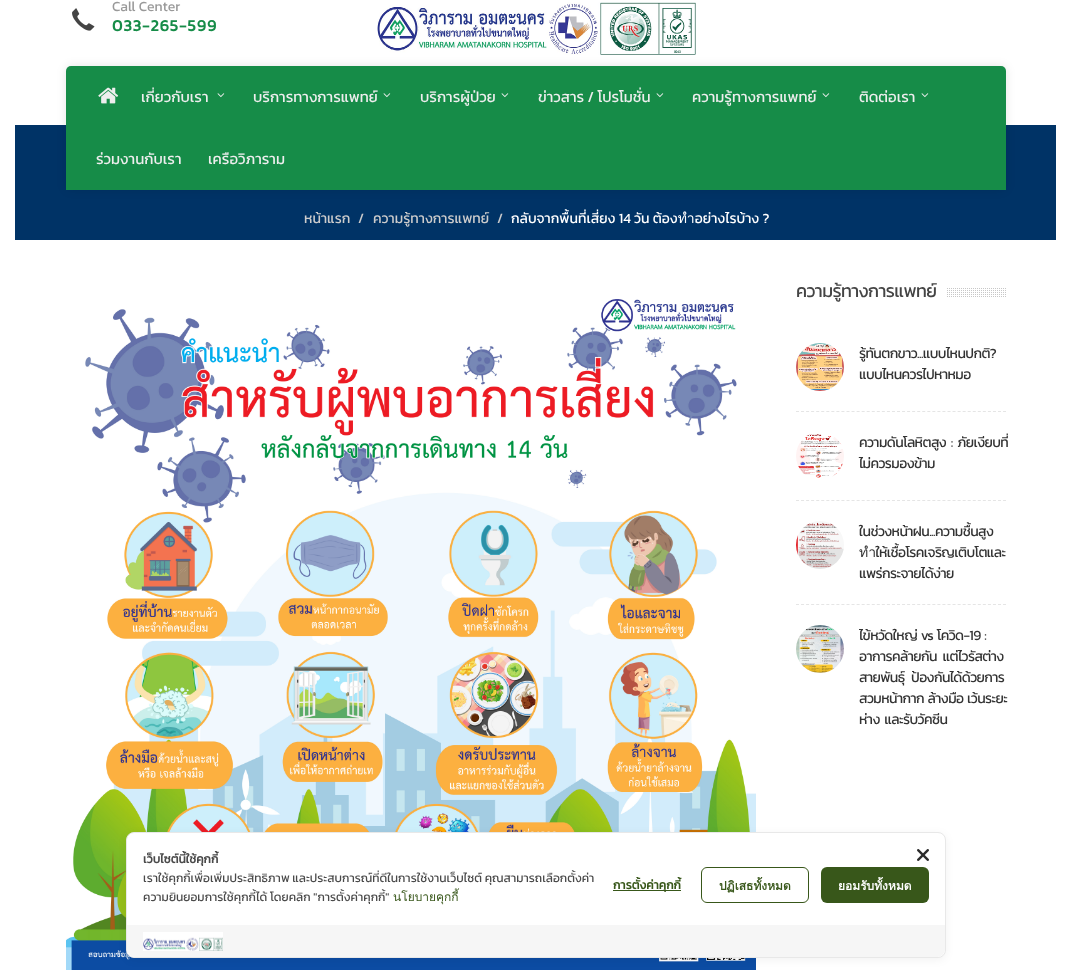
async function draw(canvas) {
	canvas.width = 1071;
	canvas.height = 974;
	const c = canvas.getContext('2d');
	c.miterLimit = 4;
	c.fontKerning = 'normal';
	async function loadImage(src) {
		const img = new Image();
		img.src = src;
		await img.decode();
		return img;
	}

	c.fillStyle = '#fff';
	c.fillRect(0, 0, 1071, 974);
	c.drawImage(await loadImage('img1.png'), 72, 8, 23, 23);
	c.font = '14px Kanit';
	c.fillStyle = '#999';
	c.fillText('Call Center', 112, 11);
	c.letterSpacing = '1px';
	c.font = 'bold 16px Kanit';
	c.fillStyle = '#168c48';
	c.fillText('033-265-599', 112, 31);
	c.drawImage(await loadImage('img2.png'), 377, 2, 319, 53);
	c.fillStyle = '#036';
	c.fillRect(15, 125, 1041, 115);
	c.fillStyle = '#0000001a';
	c.filter = 'blur(5px)';
	c.beginPath();
	c.roundRect(66, 66, 940, 124, 5);
	c.fill();
	c.filter = 'none';
	c.fillStyle = '#168c48';
	c.beginPath();
	c.roundRect(66, 66, 940, 124, [5, 5, 0, 0]);
	c.fill();
	c.drawImage(await loadImage('img3.png'), 98, 87, 21, 17);
	c.letterSpacing = '0px';
	c.font = '15px Kanit';
	c.fillStyle = '#eee';
	c.fillText('เกี่ยวกับเรา', 141, 102);
	c.drawImage(await loadImage('img4.png'), 217, 93, 8, 5);
	c.fillText('บริการทางการแพทย์', 253, 102);
	c.drawImage(await loadImage('img4.png'), 383, 93, 8, 5);
	c.fillText('บริการผู้ป่วย', 420, 102);
	c.drawImage(await loadImage('img4.png'), 501, 93, 8, 5);
	c.fillText('ข่าวสาร / โปรโมชั่น', 538, 102);
	c.drawImage(await loadImage('img4.png'), 656, 93, 8, 5);
	c.fillText('ความรู้ทางการแพทย์', 692, 102);
	c.drawImage(await loadImage('img4.png'), 822, 93, 8, 5);
	c.fillText('ติดต่อเรา', 859, 102);
	c.drawImage(await loadImage('img4.png'), 921, 93, 8, 5);
	c.fillText('ร่วมงานกับเรา', 96, 164);
	c.fillText('เครือวิภาราม', 208, 164);
	c.font = '14px Kanit';
	c.fillStyle = '#ccc';
	for (const [text, x, y] of [
		['หน้าแรก', 304, 223],
		['/', 358, 223],
		['ความรู้ทางการแพทย์', 373, 223],
		['/', 497, 223],
	]) {
		c.fillText(text, x, y);
	}
	c.fillStyle = '#fff';
	c.fillText('กลับจากพื้นที่เสี่ยง 14 วัน ต้องทำอย่างไรบ้าง ?', 511, 223);
	c.drawImage(await loadImage('img5.png'), 66, 299, 690, 671);
	c.drawImage(await loadImage('img6.png'), 947, 288, 59, 9);
	c.letterSpacing = '-0.6px';
	c.font = '18px Kanit';
	c.fillStyle = '#444';
	c.fillText('ความรู้ทางการแพทย์', 796, 297);
	c.drawImage(await loadImage('img7.png'), 796, 343, 48, 48);
	c.save();
	c.beginPath();
	c.rect(859, 343, 147, 42);
	c.clip();
	c.font = '14px Kanit';
	c.fillStyle = '#333';
	c.fillText('รู้ทันตกขาว...แบบไหนปกติ?', 859, 358);
	c.restore();
	c.font = '14px Kanit';
	c.fillStyle = '#333';
	c.fillText('แบบไหนควรไปหาหมอ', 859, 379);
	c.beginPath();
	c.moveTo(796, 411.5);
	c.lineTo(1006, 411.5);
	c.strokeStyle = '#e5e5e5';
	c.setLineDash([3, 2.05]);
	c.stroke();
	c.drawImage(await loadImage('img8.png'), 796, 434, 48, 44);
	c.wordSpacing = '2px';
	c.fillText('ความดันโลหิตสูง : ภัยเงียบที่', 859, 447);
	c.wordSpacing = '0px';
	c.fillText('ไม่ควรมองข้าม', 859, 468);
	c.beginPath();
	c.moveTo(796, 500.5);
	c.lineTo(1006, 500.5);
	c.stroke();
	c.drawImage(await loadImage('img9.png'), 796, 521, 48, 48);
	c.fillText('ในช่วงหน้าฝน...ความชื้นสูง', 859, 536);
	c.save();
	c.beginPath();
	c.rect(859, 521, 147, 63);
	c.clip();
	c.fillText('ทำให้เชื้อโรคเจริญเติบโตและ', 859, 557);
	c.restore();
	c.fillText('แพร่กระจายได้ง่าย', 859, 578);
	c.beginPath();
	c.moveTo(796, 604.5);
	c.lineTo(1006, 604.5);
	c.stroke();
	c.drawImage(await loadImage('img10.png'), 796, 625, 48, 48);
	c.save();
	c.beginPath();
	c.rect(859, 625, 147, 105);
	c.clip();
	c.wordSpacing = '1px';
	c.fillText('ไข้หวัดใหญ่ vs โควิด-19 :', 859, 640);
	c.restore();
	c.wordSpacing = '3px';
	c.fillText('อาการคล้ายกัน แต่ไวรัสต่าง', 859, 661);
	c.wordSpacing = '4px';
	c.fillText('สายพันธุ์ ป้องกันได้ด้วยการ', 859, 682);
	c.wordSpacing = '1px';
	c.fillText('สวมหน้ากาก ล้างมือ เว้นระยะ', 859, 703);
	c.save();
	c.beginPath();
	c.rect(859, 625, 147, 105);
	c.clip();
	c.wordSpacing = '2px';
	c.fillText('ห่าง และรับวัคซีน', 859, 724);
	c.restore();
	c.fillStyle = '#0000000d';
	c.filter = 'blur(4px)';
	c.beginPath();
	c.roundRect(126, 834, 820, 126, 8);
	c.fill();
	c.filter = 'none';
	c.fillStyle = '#fff';
	c.beginPath();
	c.roundRect(126.5, 832.5, 819, 125, 7.5);
	c.fill();
	c.strokeStyle = '#e8e8e8';
	c.setLineDash([]);
	c.stroke();
	c.letterSpacing = '0px';
	c.wordSpacing = '0px';
	c.font = 'bold 12px Kanit';
	c.fillStyle = '#4a4a4a';
	c.fillText('เว็บไซต์นี้ใช้คุกกี้', 143, 863);
	c.font = '12px Kanit';
	c.fillText('เราใช้คุกกี้เพื่อเพิ่มประสิทธิภาพ และประสบการณ์ที่ดีในการใช้งานเว็บไซต์ คุณสามารถเลือกตั้งค่า', 143, 882);
	c.fillText('ความยินยอมการใช้คุกกี้ได้ โดยคลิก "การตั้งค่าคุกกี้"', 143, 901);
	c.font = '12px Loma';
	c.fillStyle = '#38571a';
	c.fillText('นโยบายคุกกี้', 393, 901);
	c.fillRect(613, 890, 68, 1);
	c.font = 'bold 12px Kanit';
	c.fillText('การตั้งค่าคุกกี้', 613, 889);
	c.beginPath();
	c.roundRect(701.5, 867.5, 107, 35, 5.5);
	c.strokeStyle = '#38571a';
	c.stroke();
	c.font = 'bold 12px Loma';
	c.fillText('ปฏิเสธทั้งหมด', 719, 890);
	c.beginPath();
	c.roundRect(821, 867, 108, 36, 6);
	c.fill();
	c.fillStyle = '#fff';
	c.fillText('ยอมรับทั้งหมด', 838, 890);
	c.drawImage(await loadImage('img11.png'), 917, 849, 12, 12);
	c.fillStyle = '#f6f6f6';
	c.beginPath();
	c.roundRect(127, 925, 818, 32, [0, 0, 8, 8]);
	c.fill();
	c.drawImage(await loadImage('img12.png'), 143, 932, 80, 19);
}

draw(document.querySelector('canvas'));
